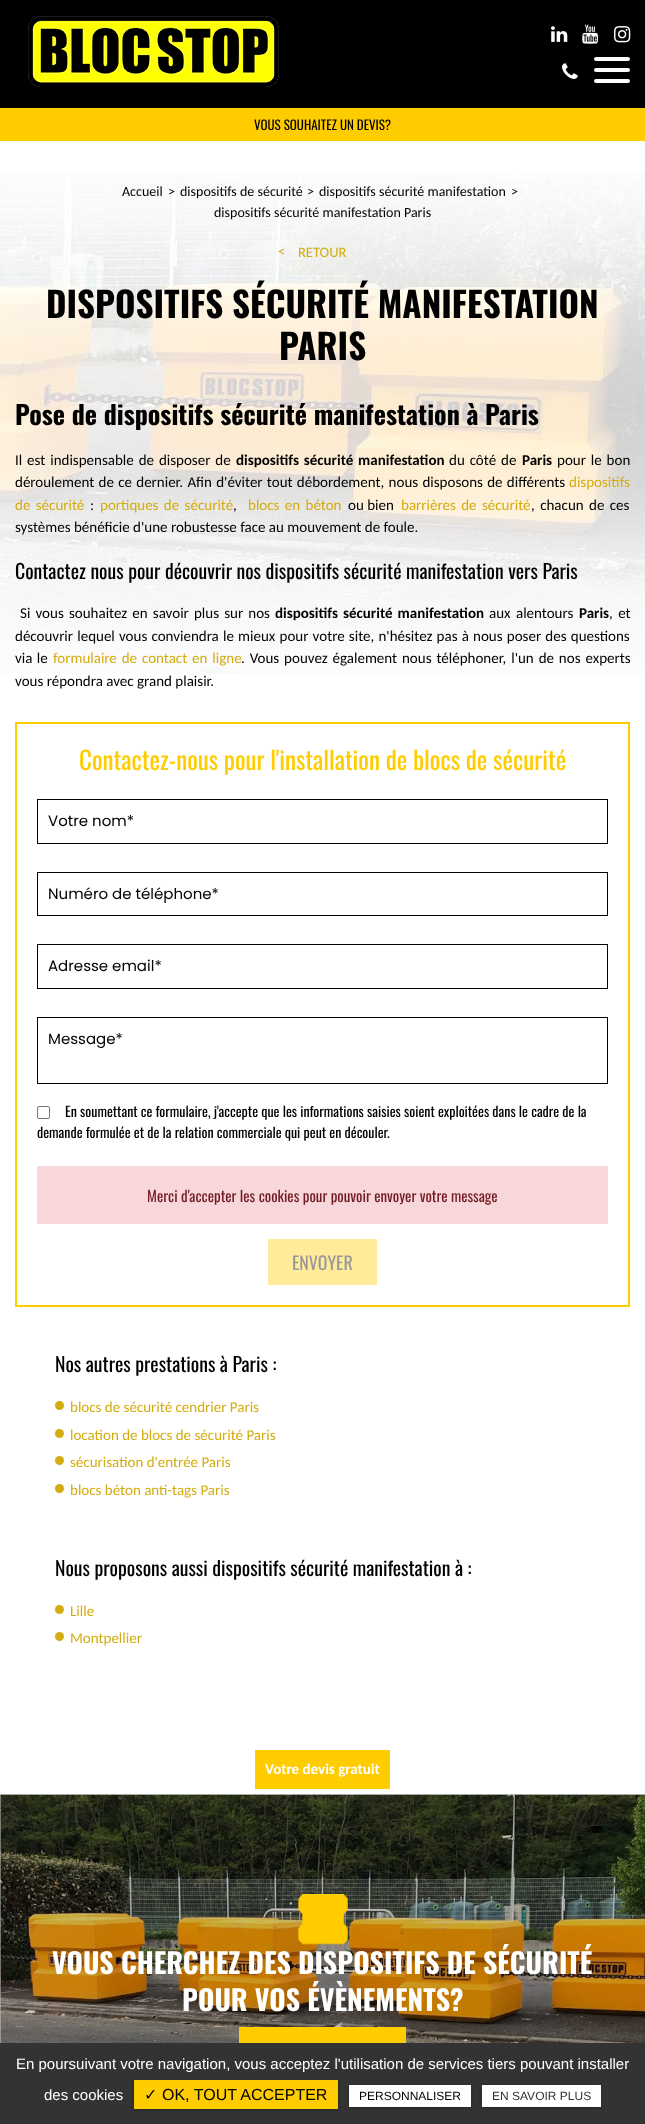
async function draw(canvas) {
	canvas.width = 645;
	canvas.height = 2124;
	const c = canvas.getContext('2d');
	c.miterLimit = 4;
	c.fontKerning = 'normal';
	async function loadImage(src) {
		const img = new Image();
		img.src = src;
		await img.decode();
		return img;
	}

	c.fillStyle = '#fff';
	c.fillRect(0, 0, 645, 2124);
	c.fillStyle = '#ccc';
	c.fillRect(0, 1794, 645, 249);
	c.fillStyle = '#000';
	c.fillRect(0, 0, 645, 108);
	c.drawImage(await loadImage('img1.png'), 28, 16, 251, 71);
	c.drawImage(await loadImage('img2.png'), 551, 26, 17, 16);
	c.drawImage(await loadImage('img3.png'), 582, 24, 16, 20);
	c.drawImage(await loadImage('img4.png'), 614, 26, 17, 17);
	c.drawImage(await loadImage('img5.png'), 562, 63, 16, 16);
	c.fillStyle = '#fff';
	c.beginPath();
	c.roundRect(594, 57, 36, 4, 2);
	c.fill();
	c.beginPath();
	c.roundRect(594, 68, 36, 4, 2);
	c.fill();
	c.beginPath();
	c.roundRect(594, 79, 36, 4, 2);
	c.fill();
	c.fillStyle = '#fc0';
	c.fillRect(0, 108, 645, 33);
	c.font = '13px Oswald';
	c.fillStyle = '#000';
	c.fillText('VOUS SOUHAITEZ UN DEVIS?', 254, 130);
	c.drawImage(await loadImage('img6.png'), 0, 173, 645, 501);
	c.font = '14px Carlito';
	for (const [text, x, y] of [
		['Accueil', 122, 196],
		['>', 168, 196],
		['dispositifs de sécurité', 180, 196],
		['>', 307, 196],
		['dispositifs sécurité manifestation', 319, 196],
		['>', 511, 196],
		['dispositifs sécurité manifestation Paris', 214, 217],
	]) {
		c.fillText(text, x, y);
	}
	c.font = '14.5px Carlito';
	c.fillStyle = '#d3ac10';
	c.fillText('<', 278, 256);
	c.fillText('RETOUR', 298, 257);
	c.font = 'bold 35px Oswald';
	c.fillStyle = '#000';
	c.fillText('DISPOSITIFS SÉCURITÉ MANIFESTATION', 46, 318);
	c.fillText('PARIS', 279, 360);
	c.font = 'bold 26px Oswald';
	c.fillText('Pose de dispositifs sécurité manifestation à Paris', 15, 425);
	c.wordSpacing = '1.5px';
	c.font = '15px Carlito';
	c.fillText('Il est indispensable de disposer de', 15, 465);
	c.font = 'bold 15px Carlito';
	c.fillText('dispositifs sécurité manifestation', 236, 465);
	c.font = '15px Carlito';
	c.fillText('du côté de', 449, 465);
	c.wordSpacing = '0px';
	c.font = 'bold 15px Carlito';
	c.fillText('Paris', 522, 465);
	c.wordSpacing = '1.5px';
	c.font = '15px Carlito';
	c.fillText('pour le bon', 557, 465);
	c.wordSpacing = '0.9px';
	c.fillText('déroulement de ce dernier. Afin d\'éviter tout débordement, nous disposons de différents', 15, 487);
	c.wordSpacing = '0px';
	c.fillStyle = '#d3ac10';
	c.fillText('dispositifs', 569, 487);
	c.wordSpacing = '2px';
	c.fillText('de sécurité', 15, 510);
	c.wordSpacing = '0px';
	c.fillStyle = '#000';
	c.fillText(':', 90, 510);
	c.wordSpacing = '2px';
	c.fillStyle = '#d3ac10';
	c.fillText('portiques de sécurité', 100, 510);
	c.wordSpacing = '0px';
	c.fillStyle = '#000';
	c.fillText(',', 233, 510);
	c.wordSpacing = '2px';
	c.fillStyle = '#d3ac10';
	c.fillText('blocs en béton', 248, 510);
	c.wordSpacing = '0px';
	c.fillStyle = '#000';
	c.fillText('ou bien', 348, 510);
	c.wordSpacing = '2px';
	c.fillStyle = '#d3ac10';
	c.fillText('barrières de sécurité', 401, 510);
	c.fillStyle = '#000';
	c.fillText(', chacun de ces', 531, 510);
	c.wordSpacing = '0px';
	c.fillText('systèmes bénéficie d\'une robustesse face au mouvement de foule.', 15, 532);
	c.font = '19.8px Oswald';
	c.fillText('Contactez nous pour découvrir nos dispositifs sécurité manifestation vers Paris', 15, 579);
	c.wordSpacing = '1.75px';
	c.font = '15px Carlito';
	c.fillText('Si vous souhaitez en savoir plus sur nos', 20, 618);
	c.font = 'bold 15px Carlito';
	c.fillText('dispositifs sécurité manifestation', 275, 618);
	c.wordSpacing = '2px';
	c.font = '15px Carlito';
	c.fillText('aux alentours', 489, 618);
	c.wordSpacing = '0px';
	c.font = 'bold 15px Carlito';
	c.fillText('Paris', 579, 618);
	c.wordSpacing = '2px';
	c.font = '15px Carlito';
	c.fillText(', et', 609, 618);
	c.wordSpacing = '0.8px';
	c.fillText('découvrir lequel vous conviendra le mieux pour votre site, n\'hésitez pas à nous poser des questions', 15, 641);
	c.wordSpacing = '1px';
	c.fillText('via le', 15, 663);
	c.wordSpacing = '1.5px';
	c.fillStyle = '#d3ac10';
	c.fillText('formulaire de contact en ligne', 53, 663);
	c.fillStyle = '#000';
	c.fillText('. Vous pouvez également nous téléphoner, l\'un de nos experts', 241, 663);
	c.wordSpacing = '0px';
	c.fillText('vous répondra avec grand plaisir.', 15, 686);
	c.strokeStyle = '#fc0';
	c.lineWidth = 2;
	c.strokeRect(16, 723, 613, 583);
	c.font = '25px Oswald';
	c.fillStyle = '#fc0';
	c.fillText('Contactez-nous pour l\'installation de blocs de sécurité', 79, 770);
	c.strokeStyle = '#000';
	c.lineWidth = 1;
	c.strokeRect(37.5, 799.5, 570, 44);
	c.font = '15px Poppins';
	c.fillStyle = '#000';
	c.fillText('Votre nom*', 48, 826);
	c.strokeRect(37.5, 872.5, 570, 43);
	c.fillText('Numéro de téléphone*', 48, 899);
	c.strokeRect(37.5, 944.5, 570, 44);
	c.fillText('Adresse email*', 48, 971);
	c.strokeRect(37.5, 1017.5, 570, 66);
	c.fillText('Message*', 48, 1044);
	c.beginPath();
	c.roundRect(37.5, 1106.5, 12, 12, 1.5);
	c.strokeStyle = '#767676';
	c.stroke();
	c.font = '14px Oswald';
	c.fillText('En soumettant ce formulaire, j\'accepte que les informations saisies soient exploitées dans le cadre de la', 65, 1117);
	c.fillText('demande formulée et de la relation commerciale qui peut en découler.', 37, 1138);
	c.fillStyle = '#f8d7da';
	c.fillRect(37, 1166, 571, 58);
	c.font = '15px Oswald';
	c.fillStyle = '#721c24';
	c.fillText('Merci d\'accepter les cookies pour pouvoir envoyer votre message', 147, 1202);
	c.fillStyle = '#ffeb99';
	c.fillRect(268, 1239, 109, 46);
	c.font = '18px Oswald';
	c.fillStyle = '#999';
	c.fillText('ENVOYER', 292, 1270);
	c.font = '19.8px Oswald';
	c.fillStyle = '#000';
	c.fillText('Nos autres prestations à Paris :', 55, 1372);
	c.fillStyle = '#d3ac10';
	c.beginPath();
	c.arc(59.5, 1405.5, 4.5, 0, 2 * Math.PI);
	c.fill();
	c.font = '15px Carlito';
	c.fillText('blocs de sécurité cendrier Paris', 70, 1412);
	c.beginPath();
	c.arc(59.5, 1433.5, 4.5, 0, 2 * Math.PI);
	c.fill();
	c.fillText('location de blocs de sécurité Paris', 70, 1440);
	c.beginPath();
	c.arc(59.5, 1460.5, 4.5, 0, 2 * Math.PI);
	c.fill();
	c.fillText('sécurisation d\'entrée Paris', 70, 1467);
	c.beginPath();
	c.arc(59.5, 1488.5, 4.5, 0, 2 * Math.PI);
	c.fill();
	c.fillText('blocs béton anti-tags Paris', 70, 1495);
	c.font = '19.8px Oswald';
	c.fillStyle = '#000';
	c.fillText('Nous proposons aussi dispositifs sécurité manifestation à :', 55, 1576);
	c.fillStyle = '#d3ac10';
	c.beginPath();
	c.arc(59.5, 1609.5, 4.5, 0, 2 * Math.PI);
	c.fill();
	c.font = '15px Carlito';
	c.fillText('Lille', 70, 1616);
	c.beginPath();
	c.arc(59.5, 1636.5, 4.5, 0, 2 * Math.PI);
	c.fill();
	c.fillText('Montpellier', 70, 1643);
	c.fillStyle = '#fc0';
	c.fillRect(255, 1750, 135, 39);
	c.font = 'bold 15px Carlito';
	c.fillStyle = '#fff';
	c.fillText('Votre devis gratuit', 265, 1774);
	c.drawImage(await loadImage('img7.png'), 0, 1794, 645, 249);
	c.drawImage(await loadImage('img8.png'), 297, 1894, 51, 51);
	c.font = 'bold 28px Oswald';
	c.fillText('VOUS CHERCHEZ DES DISPOSITIFS DE SÉCURITÉ', 52, 1974);
	c.fillText('POUR VOS ÉVÈNEMENTS?', 182, 2011);
	c.fillStyle = '#fc0';
	c.fillRect(239, 2027, 167, 16);
	c.fillStyle = '#333';
	c.fillRect(0, 2043, 645, 81);
	c.font = '15px Liberation Sans';
	c.fillStyle = '#fff';
	c.fillText('En poursuivant votre navigation, vous acceptez l\'utilisation de services tiers pouvant installer', 16, 2069);
	c.fillText('des cookies', 44, 2100);
	c.fillStyle = '#0000004d';
	c.filter = 'blur(1.5px)';
	c.beginPath();
	c.rect(134, 2081, 204, 29);
	c.fill();
	c.filter = 'none';
	c.fillStyle = '#fc0';
	c.fillRect(134, 2080, 204, 29);
	c.font = '16px DejaVu Sans';
	c.fillStyle = '#000';
	c.fillText('✓', 144, 2100);
	c.font = '16px Liberation Sans';
	c.fillText('OK, TOUT ACCEPTER', 162, 2100);
	c.fillStyle = '#0000004d';
	c.filter = 'blur(1.5px)';
	c.beginPath();
	c.rect(349, 2086, 122, 22);
	c.fill();
	c.filter = 'none';
	c.fillStyle = '#fff';
	c.fillRect(349, 2085, 122, 22);
	c.font = '12px Liberation Sans';
	c.fillStyle = '#000';
	c.fillText('PERSONNALISER', 359, 2100);
	c.fillStyle = '#0000004d';
	c.filter = 'blur(1.5px)';
	c.beginPath();
	c.rect(482, 2086, 119, 22);
	c.fill();
	c.filter = 'none';
	c.fillStyle = '#fff';
	c.fillRect(482, 2085, 119, 22);
	c.fillStyle = '#333';
	c.fillText('EN SAVOIR PLUS', 492, 2100);
}

draw(document.querySelector('canvas'));
